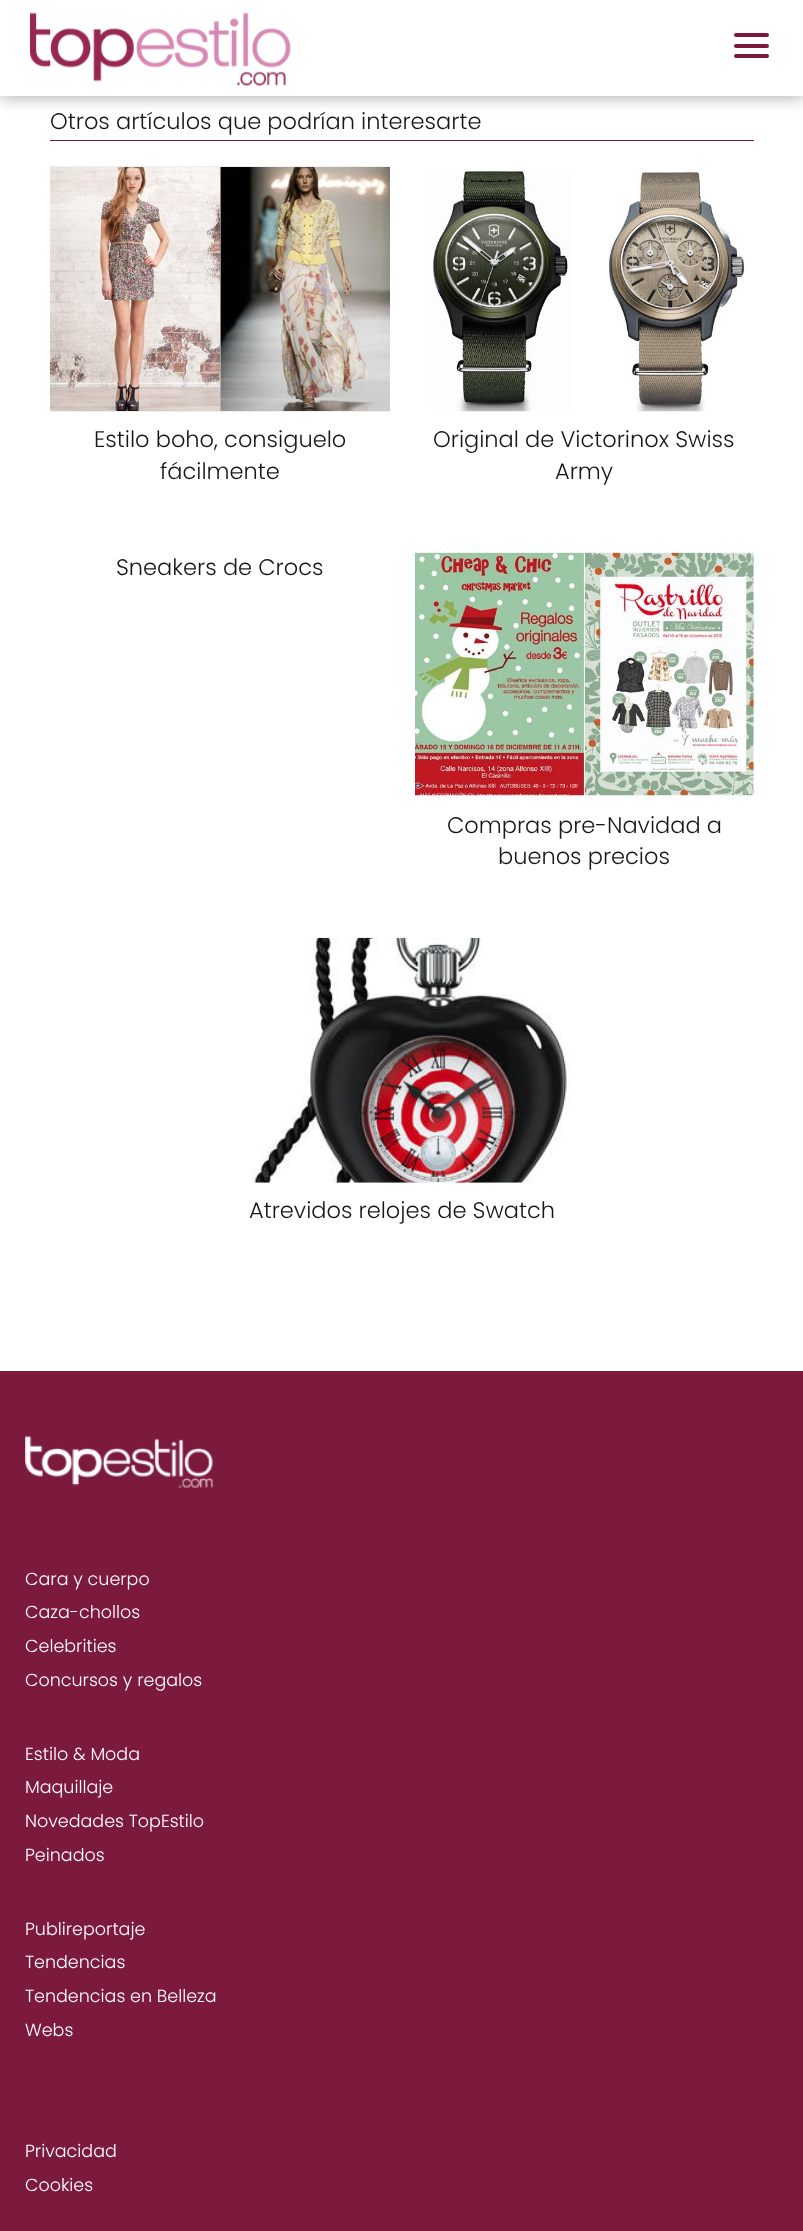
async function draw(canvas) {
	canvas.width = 803;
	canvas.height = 2231;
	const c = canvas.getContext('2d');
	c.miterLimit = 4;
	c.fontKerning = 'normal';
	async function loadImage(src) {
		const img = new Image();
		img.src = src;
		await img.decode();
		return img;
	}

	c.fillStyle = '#fff';
	c.fillRect(0, 0, 803, 2231);
	c.fillStyle = '#0000004d';
	c.filter = 'blur(7.5px)';
	c.beginPath();
	c.rect(0, 1, 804, 97);
	c.fill();
	c.filter = 'none';
	c.fillStyle = '#fff';
	c.fillRect(0, 0, 803, 96);
	c.drawImage(await loadImage('img1.png'), 30, 12, 261, 74);
	c.fillStyle = '#7b1a3d';
	c.beginPath();
	c.roundRect(734, 33, 35, 4, 2);
	c.fill();
	c.beginPath();
	c.roundRect(734, 44, 35, 4, 2);
	c.fill();
	c.beginPath();
	c.roundRect(734, 54, 35, 4, 2);
	c.fill();
	c.fillRect(50, 140, 704, 1);
	c.font = '300 22.5px Poppins';
	c.fillStyle = '#181818';
	c.fillText('Otros artículos que podrían interesarte', 50, 129);
	c.drawImage(await loadImage('img2.png'), 50, 166, 340, 246);
	c.fillText('Estilo boho, consiguelo', 94, 447);
	c.fillText('fácilmente', 160, 479);
	c.drawImage(await loadImage('img3.png'), 431, 170, 314, 242);
	for (const [text, x, y] of [
		['Original de Victorinox Swiss', 433, 447],
		['Army', 555, 479],
		['Sneakers de Crocs', 116, 575],
	]) {
		c.fillText(text, x, y);
	}
	c.drawImage(await loadImage('img4.png'), 415, 551, 339, 246);
	c.fillText('Compras pre-Navidad a', 447, 833);
	c.fillText('buenos precios', 498, 864);
	c.drawImage(await loadImage('img5.png'), 252, 937, 319, 246);
	c.fillText('Atrevidos relojes de Swatch', 249, 1218);
	c.fillStyle = '#7b1a3d';
	c.fillRect(0, 1371, 803, 860);
	c.drawImage(await loadImage('img6.png'), 25, 1436, 188, 52);
	c.font = '300 17.5px Poppins';
	c.fillStyle = '#fff';
	for (const [text, x, y] of [
		['Cara y cuerpo', 25, 1585],
		['Caza-chollos', 25, 1618],
		['Celebrities', 25, 1652],
		['Concursos y regalos', 25, 1686],
		['Estilo & Moda', 25, 1760],
		['Maquillaje', 25, 1793],
		['Novedades TopEstilo', 25, 1827],
		['Peinados', 25, 1861],
		['Publireportaje', 25, 1935],
		['Tendencias', 25, 1968],
		['Tendencias en Belleza', 25, 2002],
		['Webs', 25, 2036],
		['Privacidad', 25, 2157],
		['Cookies', 25, 2191],
	]) {
		c.fillText(text, x, y);
	}
}

draw(document.querySelector('canvas'));
